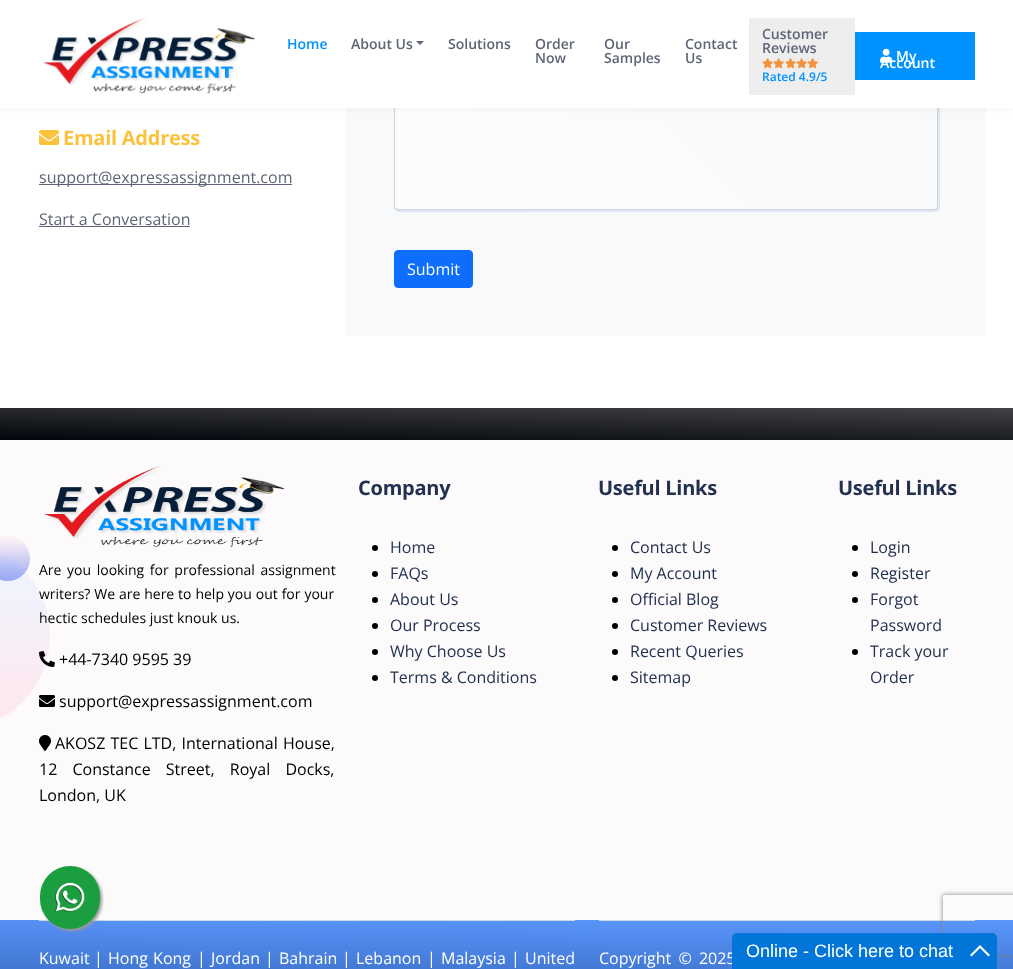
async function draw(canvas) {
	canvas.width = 1013;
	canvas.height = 969;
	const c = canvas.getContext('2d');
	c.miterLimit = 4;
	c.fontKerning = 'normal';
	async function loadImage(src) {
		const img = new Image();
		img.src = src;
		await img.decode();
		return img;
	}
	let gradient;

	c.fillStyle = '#fff';
	c.fillRect(0, 0, 1013, 969);
	c.fillStyle = '#f8f9fa';
	c.fillRect(346, 108, 640, 228);
	c.fillStyle = '#d6e2f4cf';
	c.filter = 'blur(0.5px)';
	c.beginPath();
	c.roundRect(394, 52, 546, 160, 5);
	c.fill();
	c.filter = 'none';
	gradient = c.createLinearGradient(492, 306, 841, -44);
	gradient.addColorStop(0, '#fdfdfd');
	gradient.addColorStop(1, '#f8f9fa');
	c.fillStyle = gradient;
	c.beginPath();
	c.roundRect(395, 53, 542, 156, 3);
	c.fill();
	c.beginPath();
	c.roundRect(394.5, 52.5, 543, 157, 3.5);
	c.strokeStyle = '#ced4da';
	c.stroke();
	c.fillStyle = '#0000000d';
	c.filter = 'blur(3px)';
	c.beginPath();
	c.rect(0, 1, 1013, 108);
	c.fill();
	c.filter = 'none';
	c.fillStyle = '#fff';
	c.fillRect(0, 0, 1013, 108);
	c.drawImage(await loadImage('img1.png'), 43, 16, 212, 78);
	c.font = '600 14px Open Sans';
	c.fillStyle = '#0092ff';
	c.fillText('Home', 287, 49);
	c.fillStyle = '#5e6576';
	c.fillText('About Us', 351, 49);
	c.beginPath();
	c.moveTo(416, 41);
	c.lineTo(424, 41);
	c.lineTo(420, 45);
	c.closePath();
	c.fill();
	for (const [text, x, y] of [
		['Solutions', 448, 49],
		['Order', 535, 49],
		['Now', 535, 63],
		['Our', 604, 49],
		['Samples', 604, 63],
		['Contact', 685, 49],
		['Us', 685, 63],
	]) {
		c.fillText(text, x, y);
	}
	c.fillStyle = '#eee';
	c.fillRect(749, 18, 106, 77);
	c.fillStyle = '#5e6576';
	c.fillText('Customer', 762, 39);
	c.fillText('Reviews', 762, 53);
	c.drawImage(await loadImage('img2.png'), 762, 58, 11, 11);
	c.drawImage(await loadImage('img2.png'), 773, 58, 11, 11);
	c.drawImage(await loadImage('img2.png'), 785, 58, 11, 11);
	c.drawImage(await loadImage('img2.png'), 796, 58, 11, 11);
	c.drawImage(await loadImage('img2.png'), 807, 58, 11, 11);
	c.font = '600 12px Open Sans';
	c.fillStyle = '#0092ff';
	c.fillText('Rated 4.9/5', 762, 81);
	c.fillRect(855, 32, 120, 48);
	c.drawImage(await loadImage('img3.png'), 880, 48, 13, 15);
	c.font = '600 14px Open Sans';
	c.fillStyle = '#fff';
	c.fillText('My', 896, 61);
	c.fillText('Account', 880, 68);
	c.drawImage(await loadImage('img4.png'), 39, 130, 20, 15);
	c.letterSpacing = '-0.25px';
	c.font = 'bold 20px Open Sans';
	c.fillStyle = '#fbc23e';
	c.fillText('Email Address', 63, 145);
	c.fillStyle = '#5e6576';
	c.fillRect(39, 184, 253, 1);
	c.letterSpacing = '0px';
	c.font = '16px Open Sans';
	c.fillText('support@expressassignment.com', 39, 183);
	c.fillText('Start a Conversation', 39, 225);
	c.fillRect(39, 226, 151, 1);
	c.fillStyle = '#0d6efd';
	c.beginPath();
	c.roundRect(394.5, 250.5, 78, 37, 3.5);
	c.fill();
	c.strokeStyle = '#0d6efd';
	c.stroke();
	c.fillStyle = '#fff';
	c.fillText('Submit', 407, 275);
	gradient = c.createLinearGradient(507, 399, 506, 449);
	gradient.addColorStop(0, '#404143');
	gradient.addColorStop(1, '#03060c');
	c.fillStyle = gradient;
	c.fillRect(0, 408, 1013, 32);
	c.fillStyle = '#fcfafb';
	c.fillRect(0, 440, 1013, 480);
	c.drawImage(await loadImage('img5.png'), 0, 536, 50, 183);
	c.drawImage(await loadImage('img6.png'), 44, 465, 241, 82);
	c.wordSpacing = '2px';
	c.font = '14px Open Sans';
	c.fillStyle = '#000';
	c.fillText('Are you looking for professional assignment', 39, 575);
	c.wordSpacing = '0.25px';
	c.fillText('writers? We are here to help you out for your', 39, 599);
	c.wordSpacing = '0px';
	c.fillText('hectic schedules just knouk us.', 39, 623);
	c.drawImage(await loadImage('img7.png'), 39, 651, 16, 16);
	c.font = '16px Open Sans';
	c.fillText('+44-7340 9595 39', 59, 665);
	c.drawImage(await loadImage('img8.png'), 39, 695, 16, 12);
	c.fillText('support@expressassignment.com', 59, 707);
	c.drawImage(await loadImage('img9.png'), 39, 735, 12, 16);
	c.wordSpacing = '1px';
	c.fillText('AKOSZ TEC LTD, International House,', 55, 749);
	c.wordSpacing = '11px';
	c.fillText('12 Constance Street, Royal Docks,', 39, 775);
	c.wordSpacing = '0px';
	c.fillText('London, UK', 39, 801);
	c.letterSpacing = '-0.25px';
	c.font = 'bold 20px Open Sans';
	c.fillStyle = '#223150';
	c.fillText('Company', 358, 495);
	c.fillStyle = '#000';
	c.beginPath();
	c.arc(375, 548, 3, 0, 2 * Math.PI);
	c.fill();
	c.letterSpacing = '0px';
	c.font = '16px Open Sans';
	c.fillStyle = '#223150';
	c.fillText('Home', 390, 553);
	c.fillStyle = '#000';
	c.beginPath();
	c.arc(375, 574, 3, 0, 2 * Math.PI);
	c.fill();
	c.fillStyle = '#223150';
	c.fillText('FAQs', 390, 579);
	c.fillStyle = '#000';
	c.beginPath();
	c.arc(375, 600, 3, 0, 2 * Math.PI);
	c.fill();
	c.fillStyle = '#223150';
	c.fillText('About Us', 390, 605);
	c.fillStyle = '#000';
	c.beginPath();
	c.arc(375, 626, 3, 0, 2 * Math.PI);
	c.fill();
	c.fillStyle = '#223150';
	c.fillText('Our Process', 390, 631);
	c.fillStyle = '#000';
	c.beginPath();
	c.arc(375, 652, 3, 0, 2 * Math.PI);
	c.fill();
	c.fillStyle = '#223150';
	c.fillText('Why Choose Us', 390, 657);
	c.fillStyle = '#000';
	c.beginPath();
	c.arc(375, 678, 3, 0, 2 * Math.PI);
	c.fill();
	c.fillStyle = '#223150';
	c.fillText('Terms & Conditions', 390, 683);
	c.letterSpacing = '-0.25px';
	c.font = 'bold 20px Open Sans';
	c.fillText('Useful Links', 598, 495);
	c.fillStyle = '#000';
	c.beginPath();
	c.arc(615, 548, 3, 0, 2 * Math.PI);
	c.fill();
	c.letterSpacing = '0px';
	c.font = '16px Open Sans';
	c.fillStyle = '#223150';
	c.fillText('Contact Us', 630, 553);
	c.fillStyle = '#000';
	c.beginPath();
	c.arc(615, 574, 3, 0, 2 * Math.PI);
	c.fill();
	c.fillStyle = '#223150';
	c.fillText('My Account', 630, 579);
	c.fillStyle = '#000';
	c.beginPath();
	c.arc(615, 600, 3, 0, 2 * Math.PI);
	c.fill();
	c.fillStyle = '#223150';
	c.fillText('Official Blog', 630, 605);
	c.fillStyle = '#000';
	c.beginPath();
	c.arc(615, 626, 3, 0, 2 * Math.PI);
	c.fill();
	c.fillStyle = '#223150';
	c.fillText('Customer Reviews', 630, 631);
	c.fillStyle = '#000';
	c.beginPath();
	c.arc(615, 652, 3, 0, 2 * Math.PI);
	c.fill();
	c.fillStyle = '#223150';
	c.fillText('Recent Queries', 630, 657);
	c.fillStyle = '#000';
	c.beginPath();
	c.arc(615, 678, 3, 0, 2 * Math.PI);
	c.fill();
	c.fillStyle = '#223150';
	c.fillText('Sitemap', 630, 683);
	c.letterSpacing = '-0.25px';
	c.font = 'bold 20px Open Sans';
	c.fillText('Useful Links', 838, 495);
	c.fillStyle = '#000';
	c.beginPath();
	c.arc(855, 548, 3, 0, 2 * Math.PI);
	c.fill();
	c.letterSpacing = '0px';
	c.font = '16px Open Sans';
	c.fillStyle = '#223150';
	c.fillText('Login', 870, 553);
	c.fillStyle = '#000';
	c.beginPath();
	c.arc(855, 574, 3, 0, 2 * Math.PI);
	c.fill();
	c.fillStyle = '#223150';
	c.fillText('Register', 870, 579);
	c.fillStyle = '#000';
	c.beginPath();
	c.arc(855, 600, 3, 0, 2 * Math.PI);
	c.fill();
	c.fillStyle = '#223150';
	c.fillText('Forgot', 870, 605);
	c.fillText('Password', 870, 631);
	c.fillStyle = '#000';
	c.beginPath();
	c.arc(855, 652, 3, 0, 2 * Math.PI);
	c.fill();
	c.fillStyle = '#223150';
	c.fillText('Track your', 870, 657);
	c.fillText('Order', 870, 683);
	gradient = c.createLinearGradient(507, 911, 506, 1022);
	gradient.addColorStop(0, '#5c98ff');
	gradient.addColorStop(1, '#2d5eb0');
	c.fillStyle = gradient;
	c.fillRect(0, 920, 1013, 49);
	c.fillStyle = '#d0dae2';
	c.fillRect(39, 920, 536, 1);
	c.fillStyle = '#999';
	c.filter = 'blur(1.5px)';
	c.beginPath();
	c.roundRect(42, 868, 60, 63, 30);
	c.fill();
	c.filter = 'none';
	c.fillStyle = '#1b9e3f';
	c.beginPath();
	c.roundRect(40, 866, 60, 63, 30);
	c.fill();
	c.drawImage(await loadImage('img10.png'), 55, 882, 30, 30);
	c.fillStyle = '#d0dae2';
	c.fillRect(599, 920, 376, 1);
	c.save();
	c.beginPath();
	c.moveTo(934, 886);
	c.lineTo(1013, 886);
	c.lineTo(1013, 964);
	c.lineTo(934, 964);
	c.closePath();
	c.moveTo(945, 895);
	c.lineTo(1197, 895);
	c.bezierCurveTo(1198, 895, 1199, 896, 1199, 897);
	c.lineTo(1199, 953);
	c.bezierCurveTo(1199, 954, 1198, 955, 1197, 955);
	c.lineTo(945, 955);
	c.bezierCurveTo(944, 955, 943, 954, 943, 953);
	c.lineTo(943, 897);
	c.bezierCurveTo(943, 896, 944, 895, 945, 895);
	c.closePath();
	c.clip('evenodd');
	c.fillStyle = '#808080';
	c.filter = 'blur(2.5px)';
	c.beginPath();
	c.roundRect(943, 895, 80, 60, 2);
	c.fill();
	c.filter = 'none';
	c.restore();
	c.wordSpacing = '3px';
	c.fillStyle = '#fff';
	c.fillText('Copyright © 2025', 599, 964);
	c.fillStyle = '#0275d8';
	c.beginPath();
	c.roundRect(732, 933, 265, 36, [5, 5, 0, 0]);
	c.fill();
	c.wordSpacing = '0px';
	c.font = '18px Liberation Sans';
	c.fillStyle = '#fff';
	c.fillText('Online - Click here to chat', 746, 957);
	c.beginPath();
	c.moveTo(980, 945);
	c.lineTo(990, 955);
	c.lineTo(988.5, 956.5);
	c.lineTo(980, 948);
	c.lineTo(971.5, 956.5);
	c.lineTo(970, 955);
	c.closePath();
	c.fill();
	c.font = '16px Open Sans';
	c.fillText('Kuwait', 39, 964);
	c.fillText('|', 94, 964);
	c.wordSpacing = '1px';
	c.fillText('Hong Kong', 108, 964);
	c.wordSpacing = '0px';
	for (const [text, x, y] of [
		['|', 197, 964],
		['Jordan', 211, 964],
		['|', 265, 964],
		['Bahrain', 279, 964],
		['|', 342, 964],
		['Lebanon', 356, 964],
		['|', 427, 964],
		['Malaysia', 441, 964],
		['|', 511, 964],
		['United', 525, 964],
	]) {
		c.fillText(text, x, y);
	}
}

draw(document.querySelector('canvas'));
